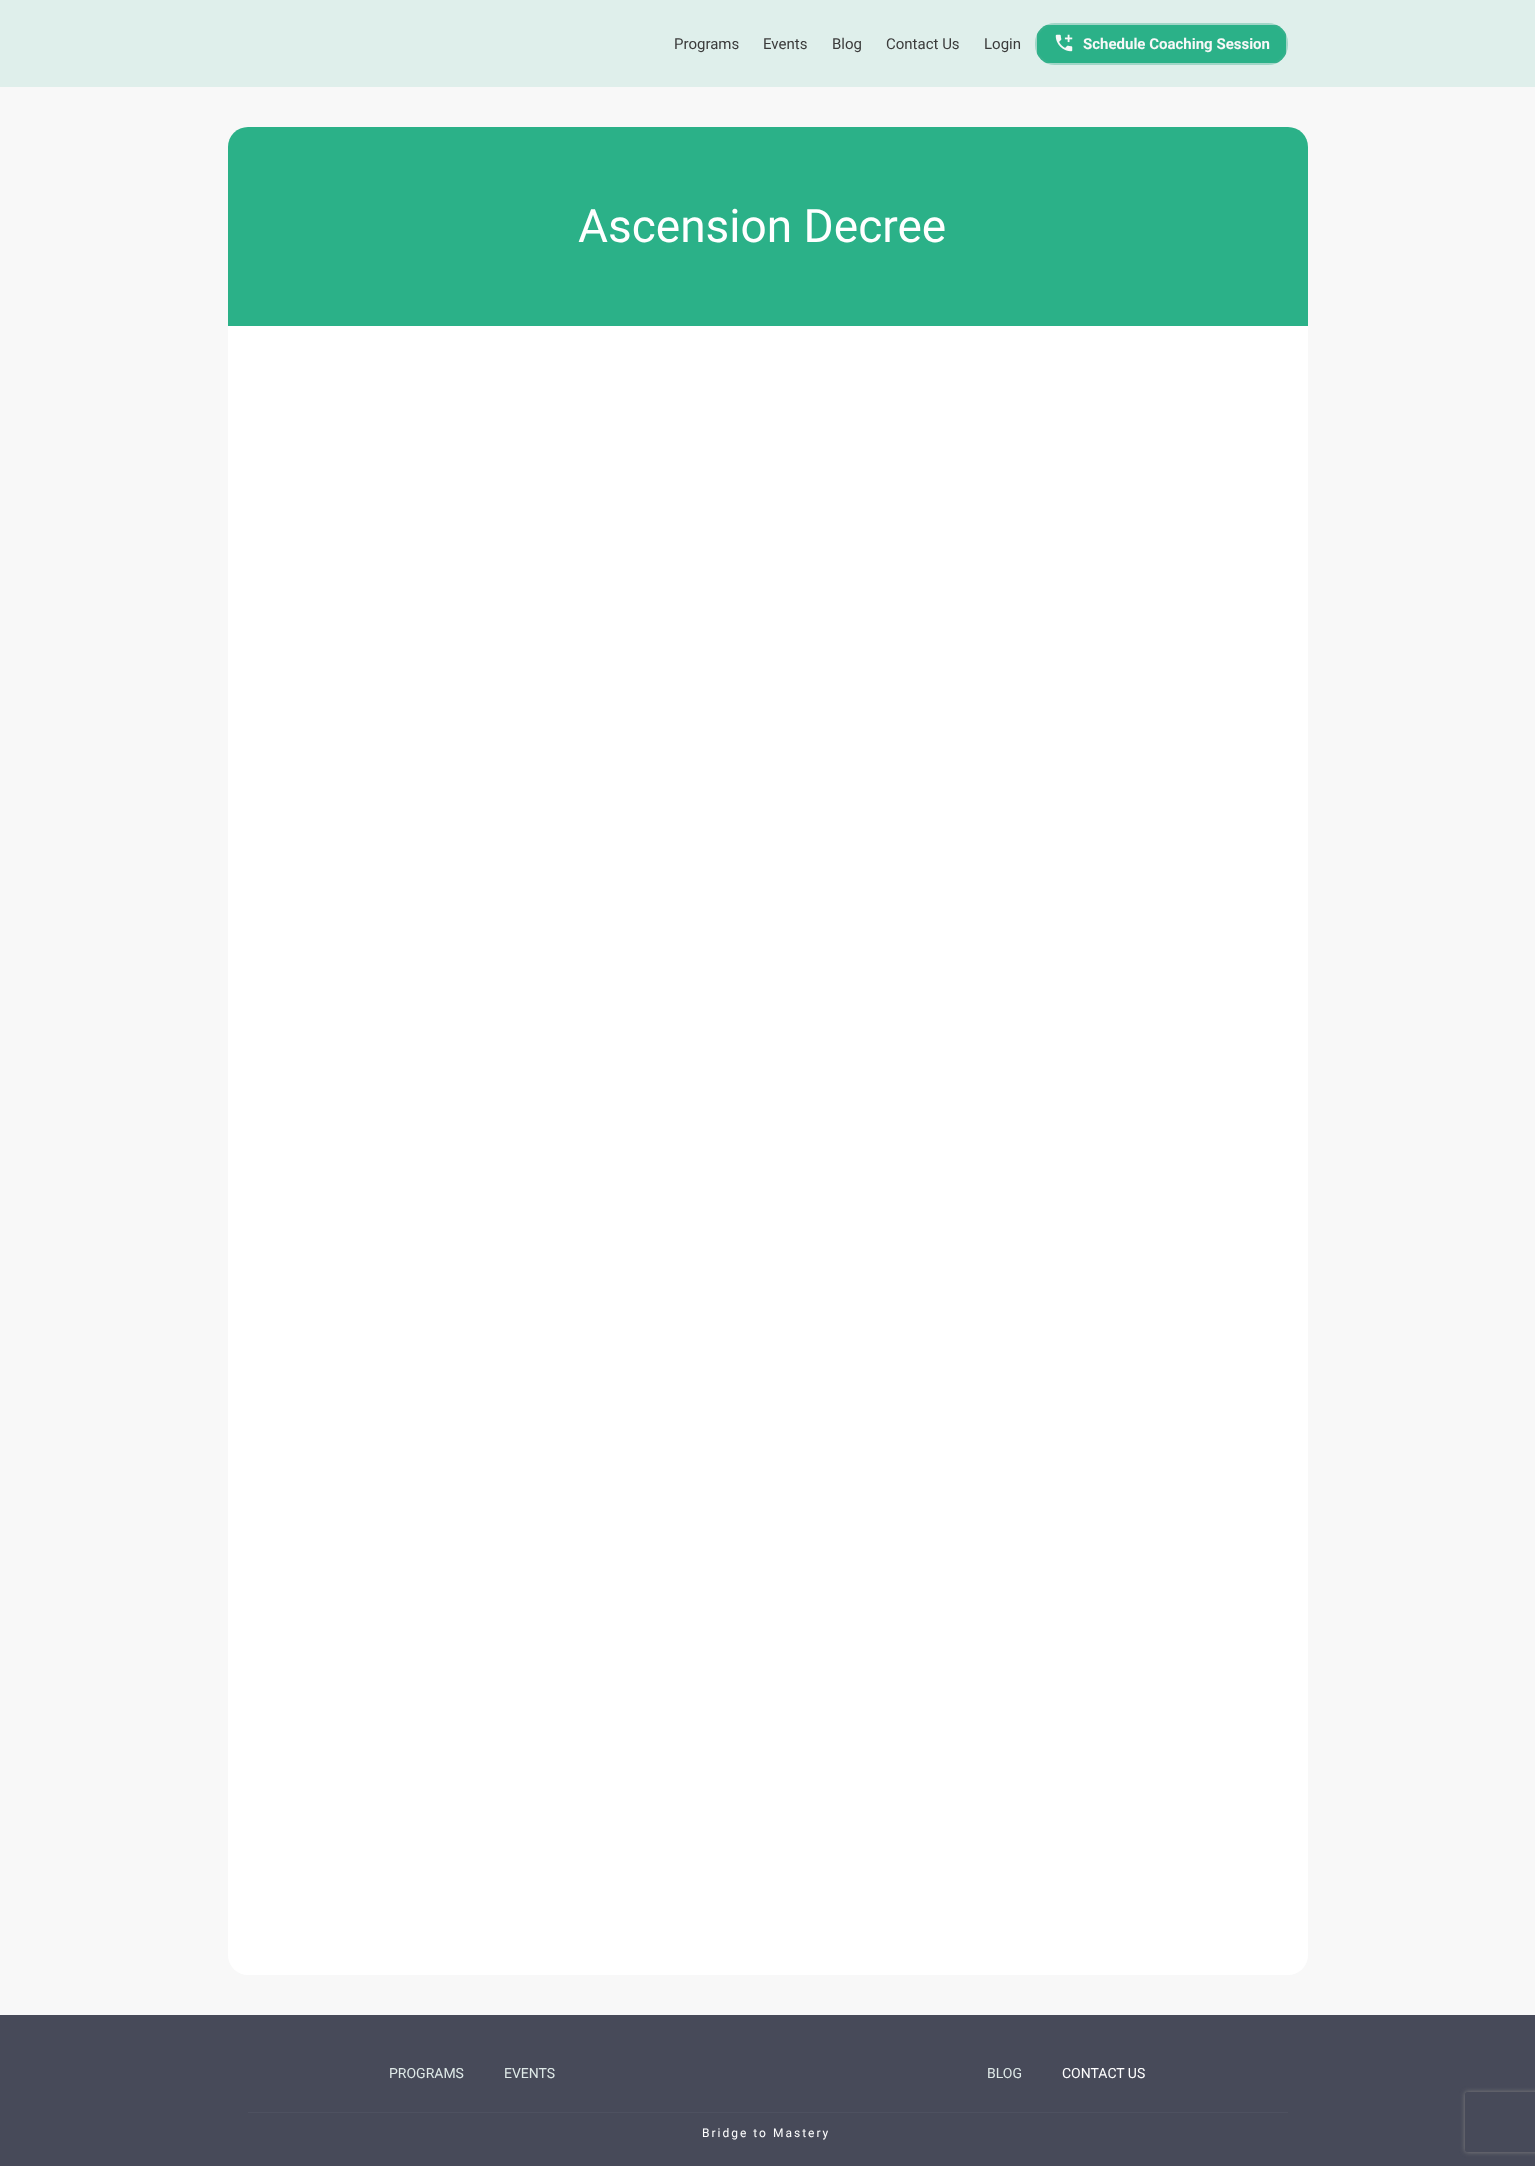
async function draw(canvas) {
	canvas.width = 1535;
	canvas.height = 2166;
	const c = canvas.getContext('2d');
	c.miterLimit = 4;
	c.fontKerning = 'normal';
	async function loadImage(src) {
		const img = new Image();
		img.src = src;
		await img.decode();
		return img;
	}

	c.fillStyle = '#f8f8f8';
	c.fillRect(0, 0, 1535, 2166);
	c.fillStyle = '#dfefeb';
	c.fillRect(0, 0, 1535, 87);
	c.font = '15px Roboto';
	c.fillStyle = '#3b3b3b';
	for (const [text, x, y] of [
		['Programs', 674, 49],
		['Events', 763, 49],
		['Blog', 832, 49],
		['Contact Us', 886, 49],
		['Login', 984, 49],
	]) {
		c.fillText(text, x, y);
	}
	c.save();
	c.beginPath();
	c.roundRect(1035, 23, 253, 42, 20);
	c.clip();
	c.fillStyle = '#2bb188';
	c.fillRect(1037, 25, 249, 38);
	c.restore();
	c.beginPath();
	c.roundRect(1036, 24, 251, 40, 19);
	c.strokeStyle = '#43b19266';
	c.lineWidth = 2;
	c.stroke();
	c.drawImage(await loadImage('img1.png'), 1055, 34, 18, 18);
	c.font = 'bold 15px Roboto';
	c.fillStyle = '#f8f8f8';
	c.fillText('Schedule Coaching Session', 1083, 49);
	c.fillStyle = '#2bb188';
	c.beginPath();
	c.roundRect(228, 127, 1080, 199, [20, 20, 0, 0]);
	c.fill();
	c.font = '46px Roboto';
	c.fillStyle = '#fff';
	c.fillText('Ascension Decree', 578, 242);
	c.beginPath();
	c.roundRect(228, 326, 1080, 1649, [0, 0, 20, 20]);
	c.fill();
	c.fillStyle = '#474a59';
	c.fillRect(0, 2015, 1535, 151);
	c.font = '14px Roboto';
	c.fillStyle = '#dee9e7';
	for (const [text, x, y] of [
		['PROGRAMS', 389, 2078],
		['EVENTS', 504, 2078],
		['BLOG', 987, 2078],
	]) {
		c.fillText(text, x, y);
	}
	c.fillStyle = '#fff';
	c.fillText('CONTACT US', 1062, 2078);
	c.fillStyle = '#4e5160';
	c.fillRect(248, 2112, 1040, 1);
	c.letterSpacing = '2px';
	c.font = '12px Roboto';
	c.fillStyle = '#fff';
	c.fillText('Bridge to Mastery', 702, 2137);
	c.save();
	c.beginPath();
	c.moveTo(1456, 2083);
	c.lineTo(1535, 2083);
	c.lineTo(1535, 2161);
	c.lineTo(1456, 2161);
	c.closePath();
	c.moveTo(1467, 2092);
	c.lineTo(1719, 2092);
	c.bezierCurveTo(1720, 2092, 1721, 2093, 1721, 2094);
	c.lineTo(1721, 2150);
	c.bezierCurveTo(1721, 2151, 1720, 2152, 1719, 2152);
	c.lineTo(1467, 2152);
	c.bezierCurveTo(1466, 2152, 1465, 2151, 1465, 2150);
	c.lineTo(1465, 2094);
	c.bezierCurveTo(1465, 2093, 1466, 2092, 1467, 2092);
	c.closePath();
	c.clip('evenodd');
	c.fillStyle = '#808080';
	c.filter = 'blur(2.5px)';
	c.beginPath();
	c.roundRect(1465, 2092, 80, 60, 2);
	c.fill();
	c.filter = 'none';
	c.restore();
}

draw(document.querySelector('canvas'));
